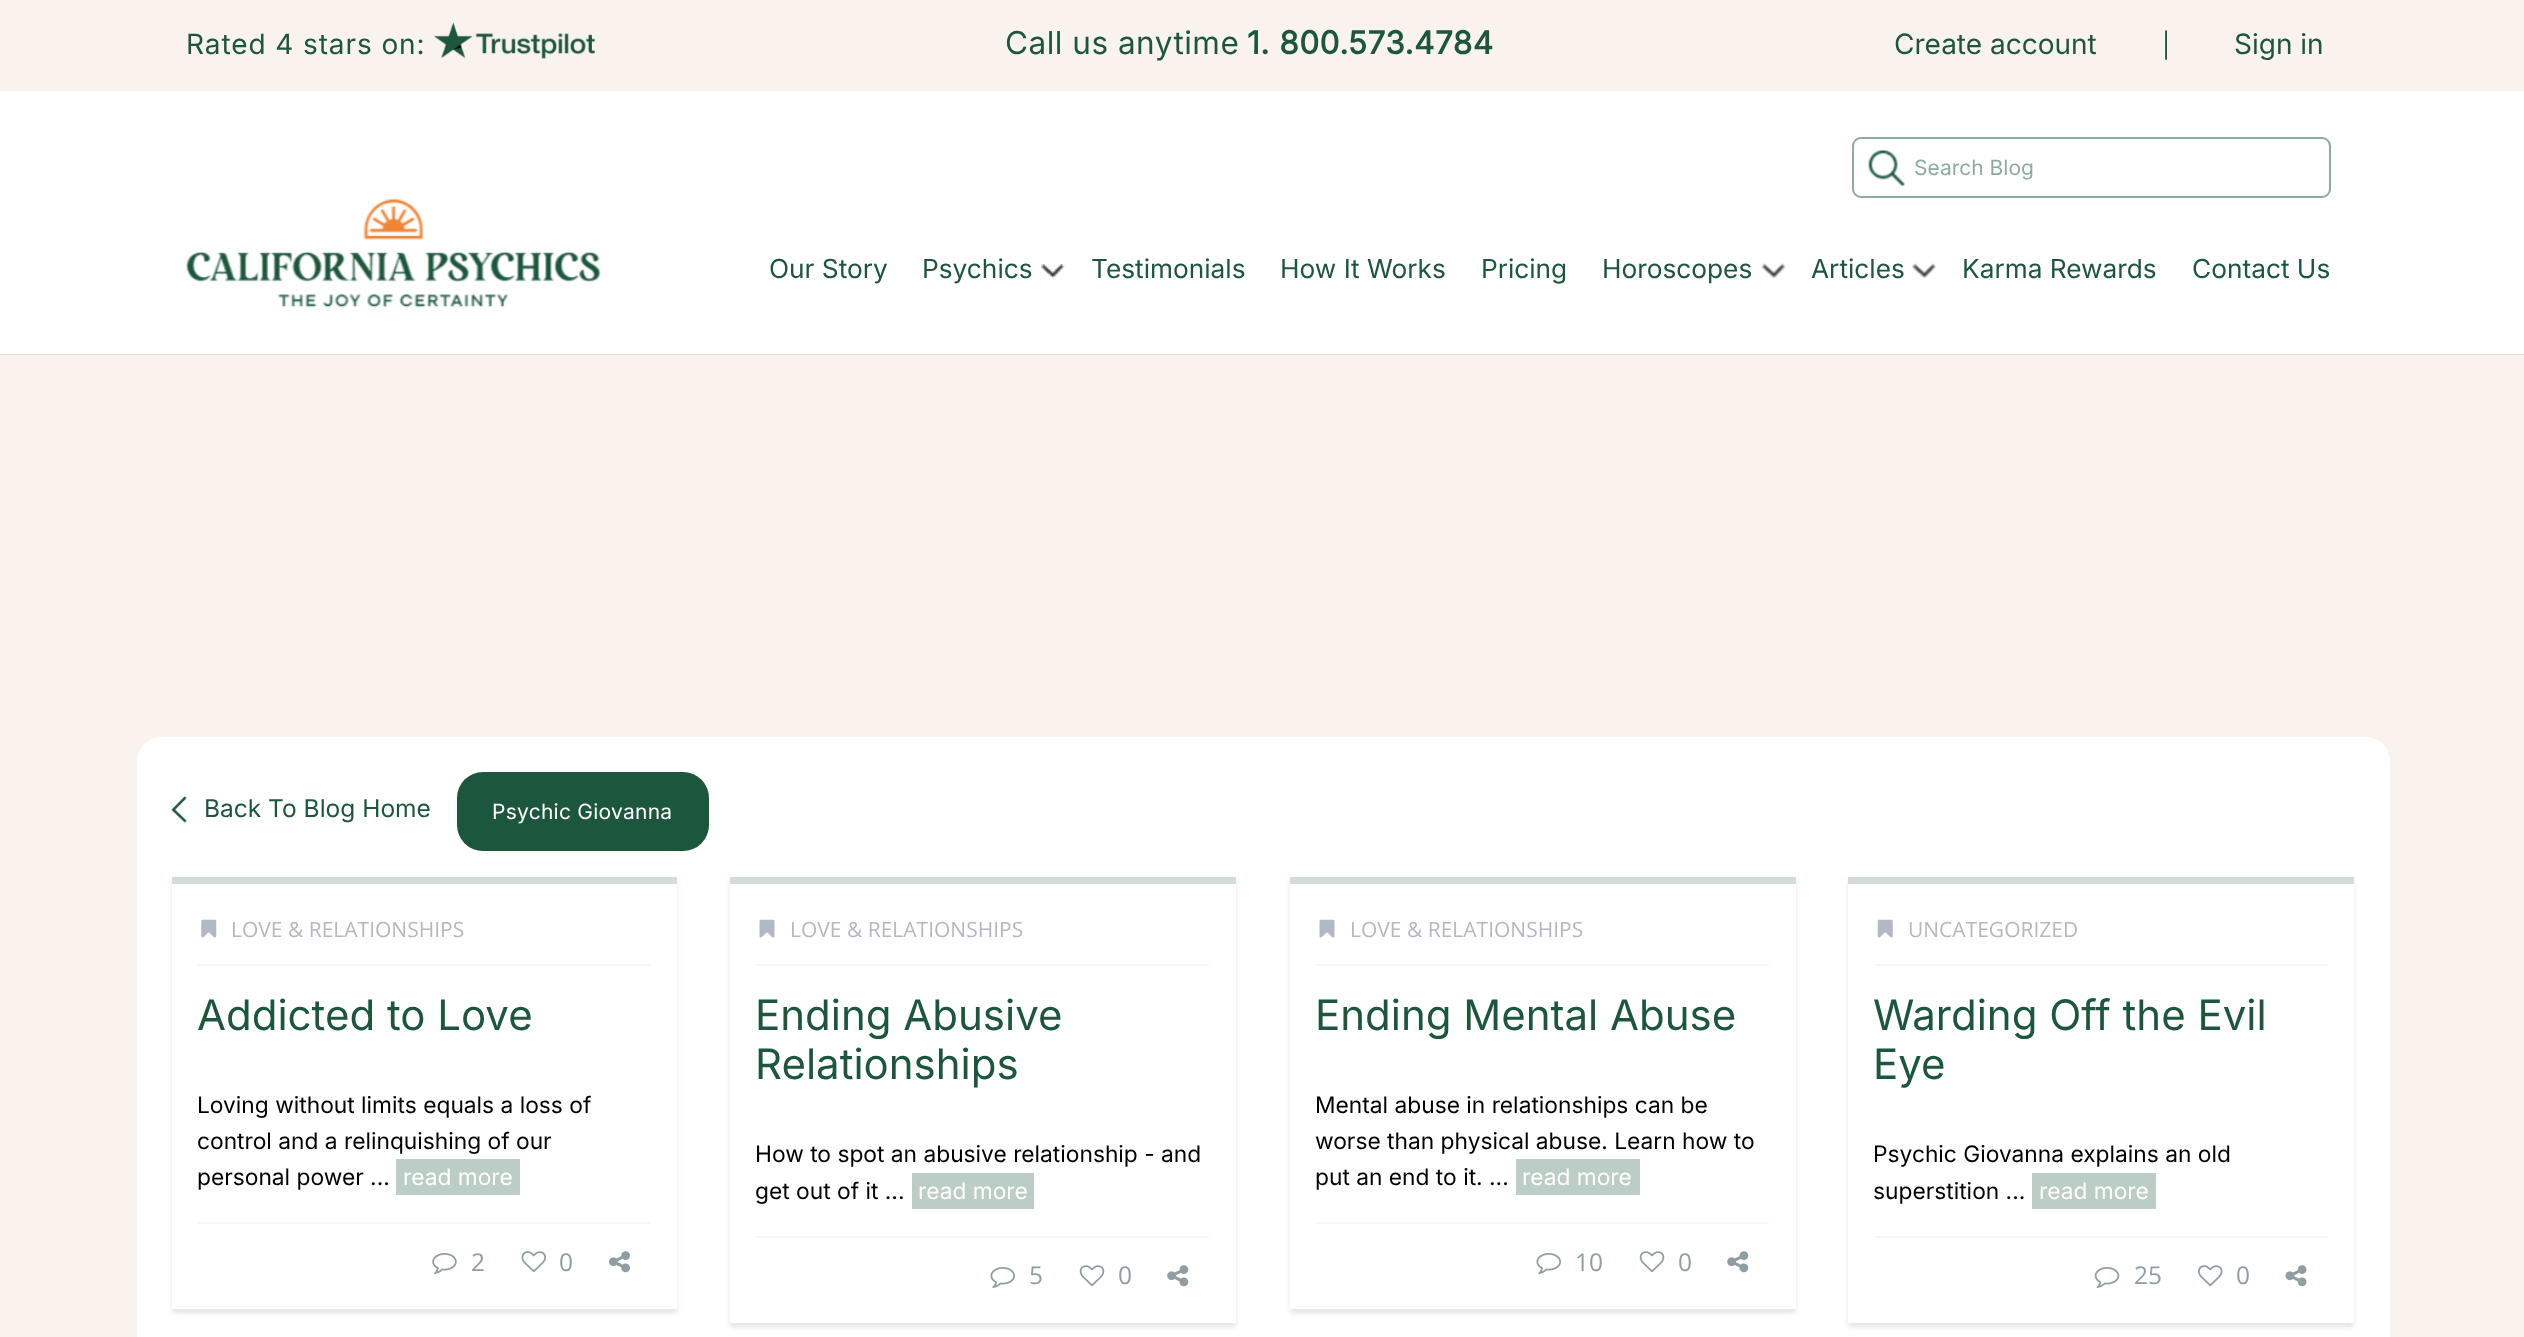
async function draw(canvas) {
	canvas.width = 2524;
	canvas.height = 1337;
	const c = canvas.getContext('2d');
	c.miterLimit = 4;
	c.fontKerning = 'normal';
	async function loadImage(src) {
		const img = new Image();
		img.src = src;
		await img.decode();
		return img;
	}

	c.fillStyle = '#faf2ed';
	c.fillRect(0, 0, 2524, 1337);
	c.fillStyle = '#e1dad5';
	c.fillRect(0, 354, 2524, 1);
	c.fillStyle = '#fff';
	c.fillRect(0, 91, 2524, 263);
	c.letterSpacing = '0.9px';
	c.font = '28px Inter';
	c.fillStyle = '#1c573d';
	c.fillText('Rated 4 stars on:', 186, 54);
	c.drawImage(await loadImage('img1.png'), 434, 22, 161, 37);
	c.letterSpacing = '0.5px';
	c.font = '31.5px Inter';
	c.fillText('Call us anytime', 1005, 54);
	c.font = 'bold 31.5px Inter';
	c.fillText('1. 800.573.4784', 1247, 54);
	c.letterSpacing = '0px';
	c.font = '28px Inter';
	c.fillText('Create account', 1894, 54);
	c.font = '24.5px Inter';
	c.fillText('|', 2162, 54);
	c.font = '28px Inter';
	c.fillText('Sign in', 2234, 54);
	c.drawImage(await loadImage('img2.png'), 186, 199, 415, 109);
	c.beginPath();
	c.roundRect(1853, 138, 477, 59, 8);
	c.strokeStyle = '#8eab9e';
	c.lineWidth = 2;
	c.stroke();
	c.drawImage(await loadImage('img3.png'), 1868, 150, 37, 36);
	c.font = '21px Inter';
	c.fillStyle = '#8eab9e';
	c.fillText('Search Blog', 1914, 175);
	c.font = '26.25px Inter';
	c.fillStyle = '#1c573d';
	c.fillText('Our Story', 769, 278);
	c.fillText('Psychics', 922, 278);
	c.drawImage(await loadImage('img4.png'), 1041, 264, 24, 15);
	for (const [text, x, y] of [
		['Testimonials', 1091, 278],
		['How It Works', 1280, 278],
		['Pricing', 1481, 278],
		['Horoscopes', 1602, 278],
	]) {
		c.fillText(text, x, y);
	}
	c.drawImage(await loadImage('img5.png'), 1761, 263, 25, 16);
	c.fillText('Articles', 1811, 278);
	c.drawImage(await loadImage('img6.png'), 1912, 263, 24, 16);
	c.fillText('Karma Rewards', 1962, 278);
	c.fillText('Contact Us', 2192, 278);
	c.fillStyle = '#fff';
	c.beginPath();
	c.roundRect(131.5, 731.5, 2264, 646, 29.5);
	c.fill();
	c.strokeStyle = '#faf2ed';
	c.lineWidth = 11;
	c.stroke();
	c.drawImage(await loadImage('img7.png'), 171, 796, 16, 27);
	c.font = '24.5px Inter';
	c.fillStyle = '#1c573d';
	c.fillText('Back To Blog Home', 204, 817);
	c.beginPath();
	c.roundRect(457, 772, 252, 79, 26);
	c.fill();
	c.letterSpacing = '0.25px';
	c.font = '21px Inter';
	c.fillStyle = '#fff';
	c.fillText('Psychic Giovanna', 492, 819);
	c.save();
	c.beginPath();
	c.moveTo(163, 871);
	c.lineTo(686, 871);
	c.lineTo(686, 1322);
	c.lineTo(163, 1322);
	c.closePath();
	c.moveTo(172, 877);
	c.lineTo(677, 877);
	c.lineTo(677, 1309);
	c.lineTo(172, 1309);
	c.closePath();
	c.clip('evenodd');
	c.fillStyle = '#0000001a';
	c.filter = 'blur(2.5px)';
	c.beginPath();
	c.rect(172, 880, 505, 433);
	c.fill();
	c.filter = 'none';
	c.restore();
	c.fillStyle = '#d2ddd8';
	c.fillRect(172, 877, 505, 7);
	c.fillStyle = '#f6f6f6';
	c.fillRect(198, 964, 453, 2);
	c.drawImage(await loadImage('img8.png'), 201, 919, 16, 19);
	c.letterSpacing = '0px';
	c.font = '21px Open Sans';
	c.fillStyle = '#b3b9c3';
	c.fillText('LOVE & RELATIONSHIPS', 231, 937);
	c.font = '42px Inter';
	c.fillStyle = '#1c573d';
	c.fillText('Addicted to Love', 197, 1030);
	c.font = '22.75px Inter';
	c.fillStyle = '#000';
	for (const [text, x, y] of [
		['Loving without limits equals a loss of', 197, 1113],
		['control and a relinquishing of our', 197, 1149],
		['personal power ...', 197, 1185],
	]) {
		c.fillText(text, x, y);
	}
	c.fillStyle = '#bbcdc5';
	c.fillRect(396, 1159, 124, 36);
	c.fillStyle = '#fff';
	c.fillText('read more', 403, 1185);
	c.fillStyle = '#f6f6f6';
	c.fillRect(198, 1222, 453, 2);
	c.drawImage(await loadImage('img9.png'), 432, 1253, 25, 21);
	c.font = '24.5px Open Sans';
	c.fillStyle = '#909ea3';
	c.fillText('2', 471, 1271);
	c.drawImage(await loadImage('img10.png'), 521, 1251, 25, 22);
	c.fillText('0', 559, 1271);
	c.drawImage(await loadImage('img11.png'), 609, 1251, 21, 22);
	c.fillStyle = '#0000001a';
	c.filter = 'blur(2.5px)';
	c.beginPath();
	c.rect(730, 880, 506, 447);
	c.fill();
	c.filter = 'none';
	for (const [x, y, w, h, color] of [
		[730, 884, 506, 439, '#fff'],
		[730, 877, 506, 7, '#d2ddd8'],
		[756, 964, 453, 2, '#f6f6f6'],
	]) {
		c.fillStyle = color;
		c.fillRect(x, y, w, h);
	}
	c.drawImage(await loadImage('img12.png'), 759, 919, 16, 19);
	c.font = '21px Open Sans';
	c.fillStyle = '#b3b9c3';
	c.fillText('LOVE & RELATIONSHIPS', 790, 937);
	c.font = '42px Inter';
	c.fillStyle = '#1c573d';
	c.fillText('Ending Abusive', 755, 1030);
	c.fillText('Relationships', 755, 1079);
	c.font = '22.75px Inter';
	c.fillStyle = '#000';
	c.fillText('How to spot an abusive relationship - and', 755, 1162);
	c.fillText('get out of it ...', 755, 1199);
	c.fillStyle = '#bbcdc5';
	c.fillRect(912, 1173, 122, 36);
	c.fillStyle = '#fff';
	c.fillText('read more', 918, 1199);
	c.fillStyle = '#f6f6f6';
	c.fillRect(756, 1236, 453, 2);
	c.drawImage(await loadImage('img13.png'), 990, 1267, 25, 21);
	c.font = '24.5px Open Sans';
	c.fillStyle = '#909ea3';
	c.fillText('5', 1029, 1284);
	c.drawImage(await loadImage('img14.png'), 1079, 1265, 26, 22);
	c.fillText('0', 1118, 1284);
	c.drawImage(await loadImage('img15.png'), 1167, 1265, 22, 22);
	c.fillStyle = '#0000001a';
	c.filter = 'blur(2.5px)';
	c.beginPath();
	c.rect(1290, 880, 506, 433);
	c.fill();
	c.filter = 'none';
	for (const [x, y, w, h, color] of [
		[1290, 884, 506, 425, '#fff'],
		[1290, 877, 506, 7, '#d2ddd8'],
		[1316, 964, 453, 2, '#f6f6f6'],
	]) {
		c.fillStyle = color;
		c.fillRect(x, y, w, h);
	}
	c.drawImage(await loadImage('img12.png'), 1319, 919, 16, 19);
	c.font = '21px Open Sans';
	c.fillStyle = '#b3b9c3';
	c.fillText('LOVE & RELATIONSHIPS', 1350, 937);
	c.font = '42px Inter';
	c.fillStyle = '#1c573d';
	c.fillText('Ending Mental Abuse', 1315, 1030);
	c.font = '22.75px Inter';
	c.fillStyle = '#000';
	for (const [text, x, y] of [
		['Mental abuse in relationships can be', 1315, 1113],
		['worse than physical abuse. Learn how to', 1315, 1149],
		['put an end to it. ...', 1315, 1185],
	]) {
		c.fillText(text, x, y);
	}
	c.fillStyle = '#bbcdc5';
	c.fillRect(1516, 1159, 124, 36);
	c.fillStyle = '#fff';
	c.fillText('read more', 1522, 1185);
	c.fillStyle = '#f6f6f6';
	c.fillRect(1316, 1222, 453, 2);
	c.drawImage(await loadImage('img13.png'), 1536, 1253, 25, 21);
	c.font = '24.5px Open Sans';
	c.fillStyle = '#909ea3';
	c.fillText('10', 1575, 1271);
	c.drawImage(await loadImage('img14.png'), 1639, 1251, 26, 22);
	c.fillText('0', 1678, 1271);
	c.drawImage(await loadImage('img15.png'), 1727, 1251, 22, 22);
	c.fillStyle = '#0000001a';
	c.filter = 'blur(2.5px)';
	c.beginPath();
	c.rect(1848, 880, 506, 447);
	c.fill();
	c.filter = 'none';
	for (const [x, y, w, h, color] of [
		[1848, 884, 506, 439, '#fff'],
		[1848, 877, 506, 7, '#d2ddd8'],
		[1874, 964, 454, 2, '#f6f6f6'],
	]) {
		c.fillStyle = color;
		c.fillRect(x, y, w, h);
	}
	c.drawImage(await loadImage('img16.png'), 1877, 919, 16, 19);
	c.font = '21px Open Sans';
	c.fillStyle = '#b3b9c3';
	c.fillText('UNCATEGORIZED', 1908, 937);
	c.font = '42px Inter';
	c.fillStyle = '#1c573d';
	c.fillText('Warding Off the Evil', 1873, 1030);
	c.fillText('Eye', 1873, 1079);
	c.font = '22.75px Inter';
	c.fillStyle = '#000';
	c.fillText('Psychic Giovanna explains an old', 1873, 1162);
	c.fillText('superstition ...', 1873, 1199);
	c.fillStyle = '#bbcdc5';
	c.fillRect(2032, 1173, 124, 36);
	c.fillStyle = '#fff';
	c.fillText('read more', 2039, 1199);
	c.fillStyle = '#f6f6f6';
	c.fillRect(1874, 1236, 454, 2);
	c.drawImage(await loadImage('img17.png'), 2094, 1267, 26, 21);
	c.font = '24.5px Open Sans';
	c.fillStyle = '#909ea3';
	c.fillText('25', 2134, 1284);
	c.drawImage(await loadImage('img18.png'), 2198, 1265, 25, 22);
	c.fillText('0', 2236, 1284);
	c.drawImage(await loadImage('img19.png'), 2285, 1265, 22, 22);
}

draw(document.querySelector('canvas'));
